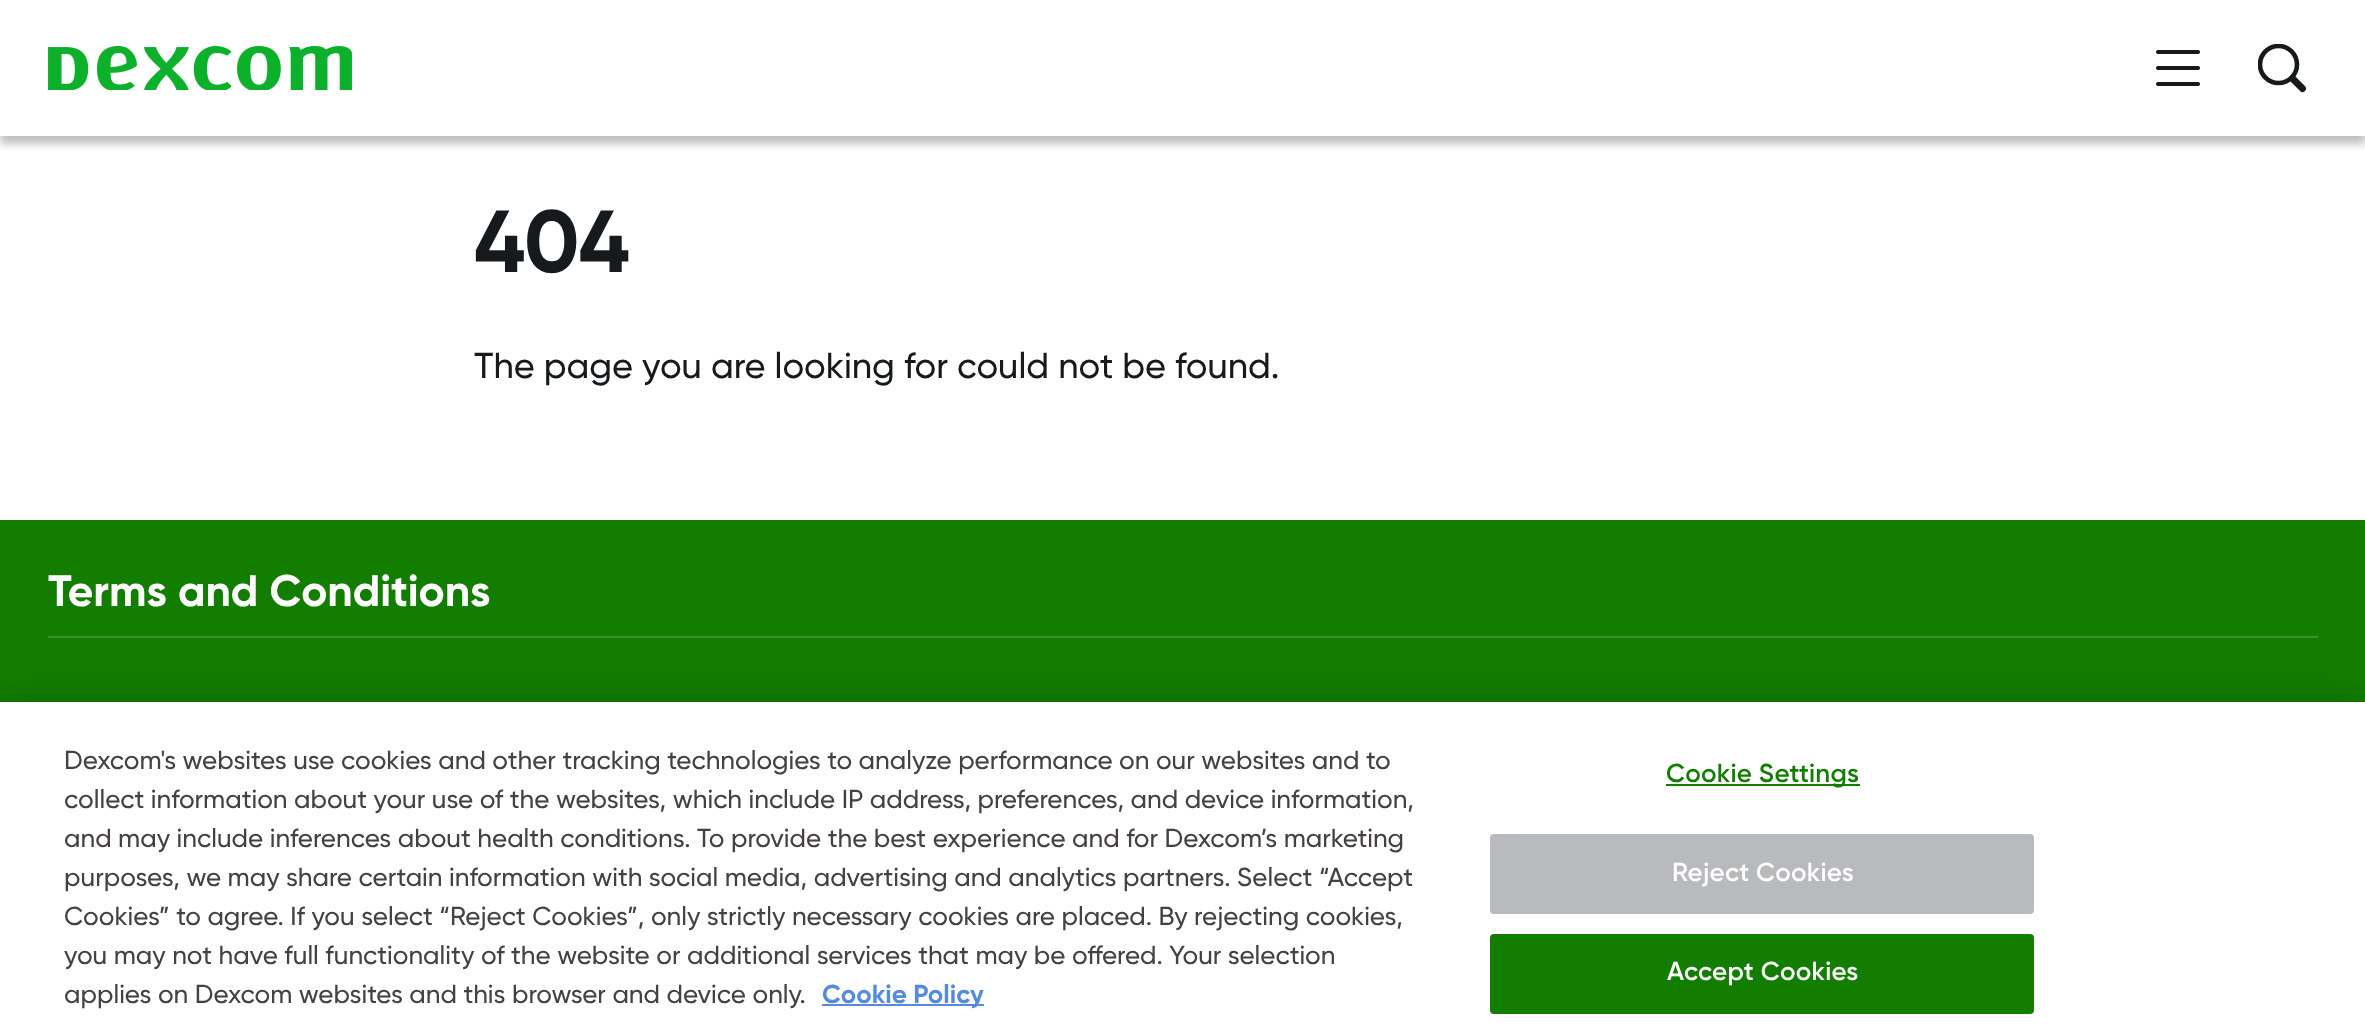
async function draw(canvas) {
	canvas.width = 2365;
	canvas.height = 1035;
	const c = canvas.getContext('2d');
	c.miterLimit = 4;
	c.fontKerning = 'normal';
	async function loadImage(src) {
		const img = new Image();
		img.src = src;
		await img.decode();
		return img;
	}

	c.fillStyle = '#fff';
	c.fillRect(0, 0, 2365, 1035);
	c.save();
	c.beginPath();
	c.rect(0, 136, 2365, 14);
	c.clip();
	c.fillStyle = '#00000040';
	c.filter = 'blur(4px)';
	c.beginPath();
	c.rect(0, 8, 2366, 136);
	c.fill();
	c.filter = 'none';
	c.restore();
	c.drawImage(await loadImage('img1.png'), 48, 46, 304, 44);
	c.drawImage(await loadImage('img2.png'), 2156, 50, 44, 36);
	c.save();
	c.beginPath();
	c.rect(2258, 44, 48, 48);
	c.clip();
	c.beginPath();
	c.arc(2278.5, 64.5, 18.5, 0, 2 * Math.PI);
	c.strokeStyle = '#161a1d';
	c.lineWidth = 4.6;
	c.stroke();
	c.restore();
	c.beginPath();
	c.moveTo(2292.5, 78.5);
	c.lineTo(2302.5, 88.5);
	c.strokeStyle = '#161a1d';
	c.lineWidth = 6.9;
	c.lineCap = 'round';
	c.stroke();
	c.letterSpacing = '-1px';
	c.font = 'bold 88px Gilroy';
	c.fillStyle = '#161a1d';
	c.fillText('404', 474, 272);
	c.letterSpacing = '0px';
	c.font = '500 36px Gilroy';
	c.fillText('The page you are looking for could not be found.', 474, 378);
	c.fillStyle = '#137d00';
	c.fillRect(0, 520, 2365, 182);
	c.font = 'bold 44px Gilroy';
	c.fillStyle = '#fff';
	c.fillText('Terms and Conditions', 48, 606);
	c.fillStyle = '#399229';
	c.fillRect(48, 636, 2270, 2);
	c.fillStyle = '#00000033';
	c.filter = 'blur(18px)';
	c.beginPath();
	c.rect(0, 702, 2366, 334);
	c.fill();
	c.filter = 'none';
	c.fillStyle = '#fff';
	c.fillRect(0, 702, 2365, 333);
	c.font = '500 26.02px Gilroy';
	c.fillStyle = '#434141';
	for (const [text, x, y] of [
		['Dexcom\'s websites use cookies and other tracking technologies to analyze performance on our websites and to', 64, 769],
		['collect information about your use of the websites, which include IP address, preferences, and device information,', 64, 808],
		['and may include inferences about health conditions. To provide the best experience and for Dexcom’s marketing', 64, 847],
		['purposes, we may share certain information with social media, advertising and analytics partners. Select “Accept', 64, 886],
		['Cookies” to agree. If you select “Reject Cookies”, only strictly necessary cookies are placed. By rejecting cookies,', 64, 925],
		['you may not have full functionality of the website or additional services that may be offered. Your selection', 64, 964],
		['applies on Dexcom websites and this browser and device only.', 64, 1003],
	]) {
		c.fillText(text, x, y);
	}
	c.fillStyle = '#558bdb';
	c.fillRect(822, 1004, 162, 2);
	c.font = 'bold 26.02px Gilroy';
	c.fillText('Cookie Policy', 822, 1003);
	c.fillStyle = '#137d00';
	c.fillRect(1666, 784, 194, 2);
	c.letterSpacing = '0.25px';
	c.font = '600 26.02px Gilroy';
	c.fillText('Cookie Settings', 1666, 782);
	c.fillStyle = '#b8babc';
	c.beginPath();
	c.roundRect(1490, 834, 544, 80, 4);
	c.fill();
	c.fillStyle = '#fff';
	c.fillText('Reject Cookies', 1672, 881);
	c.fillStyle = '#137d00';
	c.beginPath();
	c.roundRect(1490, 934, 544, 80, 4);
	c.fill();
	c.fillStyle = '#fff';
	c.fillText('Accept Cookies', 1667, 980);
}

draw(document.querySelector('canvas'));
